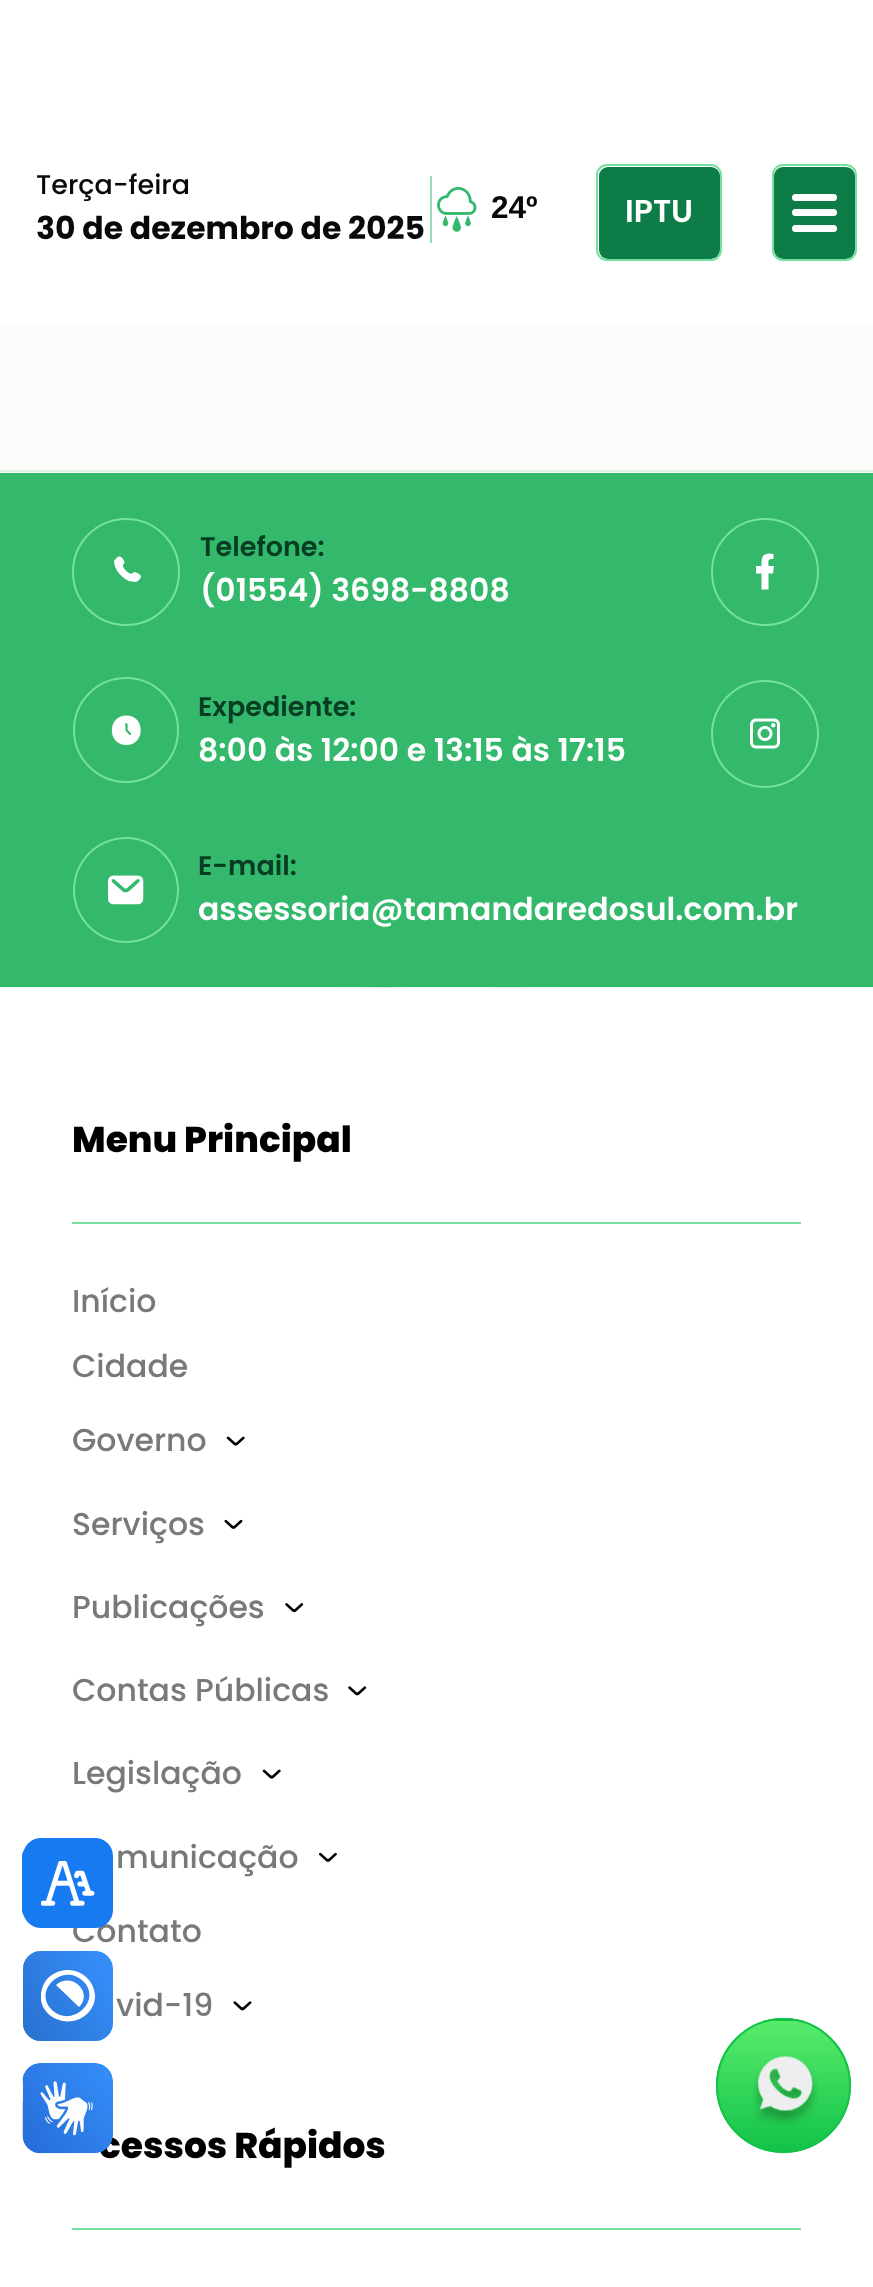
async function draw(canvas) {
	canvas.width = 873;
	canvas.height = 2287;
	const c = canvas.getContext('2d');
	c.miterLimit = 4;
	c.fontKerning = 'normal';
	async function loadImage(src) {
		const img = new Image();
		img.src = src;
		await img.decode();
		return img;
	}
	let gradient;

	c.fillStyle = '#fafcfa';
	c.fillRect(0, 0, 873, 2287);
	c.fillStyle = '#fff';
	c.fillRect(0, 0, 873, 326);
	c.font = '500 27px Poppins';
	c.fillStyle = '#070a09';
	c.fillText('Terça-feira', 36, 194);
	c.font = 'bold 31.5px Poppins';
	c.fillText('30 de dezembro de 2025', 36, 239);
	c.fillStyle = '#99dcb6';
	c.fillRect(430, 176, 2, 67);
	c.drawImage(await loadImage('img1.png'), 437, 187, 40, 45);
	c.font = 'bold 31.5px Liberation Sans';
	c.fillStyle = '#070a09';
	c.fillText('24º', 491, 218);
	c.fillStyle = '#0e7c47';
	c.beginPath();
	c.roundRect(599, 167, 121, 92, 9);
	c.fill();
	c.beginPath();
	c.roundRect(597, 165, 124, 95, 10);
	c.strokeStyle = '#75e09f';
	c.lineWidth = 2;
	c.stroke();
	c.font = '600 31.5px Poppins';
	c.fillStyle = '#fff';
	c.fillText('IPTU', 625, 222);
	c.fillStyle = '#0e7c47';
	c.beginPath();
	c.roundRect(774, 167, 81, 92, 9);
	c.fill();
	c.beginPath();
	c.roundRect(773, 165, 83, 95, 10);
	c.stroke();
	c.fillStyle = '#fff';
	c.beginPath();
	c.roundRect(792, 194, 45, 7, 3.5);
	c.fill();
	c.beginPath();
	c.roundRect(792, 209, 45, 7, 3.5);
	c.fill();
	c.beginPath();
	c.roundRect(792, 225, 45, 7, 3.5);
	c.fill();
	c.fillStyle = '#daf1e3';
	c.fillRect(0, 470, 873, 2);
	c.fillStyle = '#fff';
	c.fillRect(0, 988, 873, 1299);
	c.font = '500 31.5px Poppins';
	c.fillStyle = '#777a77';
	c.fillText('Contato', 72, 1942);
	c.fillStyle = '#177af1';
	c.beginPath();
	c.moveTo(58, 1838);
	c.lineTo(76, 1838);
	c.bezierCurveTo(96, 1838, 112, 1846, 112, 1856);
	c.lineTo(112, 1910);
	c.bezierCurveTo(112, 1920, 96, 1928, 76, 1928);
	c.lineTo(58, 1928);
	c.bezierCurveTo(39, 1928, 22, 1920, 22, 1910);
	c.lineTo(22, 1856);
	c.bezierCurveTo(22, 1846, 39, 1838, 58, 1838);
	c.closePath();
	c.fill();
	c.beginPath();
	c.roundRect(23, 1838, 90, 90, 18);
	c.fill();
	c.drawImage(await loadImage('img2.png'), 41, 1861, 54, 45);
	c.fillStyle = '#33b86c';
	c.fillRect(0, 473, 873, 515);
	c.beginPath();
	c.arc(765, 572, 53, 0, 2 * Math.PI);
	c.stroke();
	c.fillStyle = '#fff';
	c.beginPath();
	c.moveTo(768.5, 589.5);
	c.lineTo(768.5, 573.5);
	c.lineTo(773, 573.5);
	c.lineTo(774, 566);
	c.lineTo(768.5, 566);
	c.bezierCurveTo(768.5, 560.5, 767, 559, 773.5, 559);
	c.lineTo(773.5, 554);
	c.lineTo(769, 553.5);
	c.bezierCurveTo(761, 554, 761.5, 560, 761.5, 566);
	c.lineTo(756, 566);
	c.lineTo(756, 573.5);
	c.lineTo(761.5, 573.5);
	c.lineTo(761.5, 589.5);
	c.closePath();
	c.fill('evenodd');
	c.drawImage(await loadImage('img3.png'), 711, 680, 108, 108);
	c.beginPath();
	c.arc(126, 572, 53, 0, 2 * Math.PI);
	c.stroke();
	c.beginPath();
	c.moveTo(133, 573);
	c.bezierCurveTo(131.5, 574, 130.5, 574, 129, 573);
	c.bezierCurveTo(126.5, 571.5, 123.5, 569, 123, 566);
	c.bezierCurveTo(122.5, 563, 127, 564.5, 122.5, 558.5);
	c.bezierCurveTo(122, 557.5, 121, 556.5, 119, 556.5);
	c.bezierCurveTo(118, 556.5, 117, 557.5, 116, 558.5);
	c.bezierCurveTo(115.5, 559.5, 114.5, 560, 114, 561);
	c.lineTo(114.5, 564.5);
	c.bezierCurveTo(116, 570.5, 120.5, 576, 126, 579.5);
	c.bezierCurveTo(127.5, 580.5, 130, 581.5, 132, 581.5);
	c.bezierCurveTo(136, 582.5, 137, 582, 139.5, 579.5);
	c.bezierCurveTo(142.5, 576, 140.5, 574.5, 137, 573);
	c.bezierCurveTo(135.5, 572, 134, 571.5, 133, 573);
	c.fill();
	c.font = '600 27px Poppins';
	c.fillStyle = '#073d23';
	c.fillText('Telefone:', 200, 556);
	c.font = '600 31.5px Poppins';
	c.fillStyle = '#fff';
	c.fillText('(01554) 3698-8808', 200, 601);
	c.beginPath();
	c.arc(126, 730, 52, 0, 2 * Math.PI);
	c.stroke();
	c.beginPath();
	c.moveTo(126.5, 715.5);
	c.bezierCurveTo(145.5, 715.5, 145.5, 745, 126.5, 745);
	c.bezierCurveTo(107, 745, 107, 715.5, 126.5, 715.5);
	c.moveTo(126.5, 723);
	c.bezierCurveTo(124.5, 723, 125.5, 726.5, 125.5, 727);
	c.lineTo(125.5, 730.5);
	c.lineTo(129.5, 735);
	c.bezierCurveTo(131.5, 735.5, 131.5, 733.5, 130, 732.5);
	c.lineTo(127.5, 729.5);
	c.bezierCurveTo(127.5, 728.5, 128.5, 723, 126.5, 723);
	c.fill();
	c.font = '600 27px Poppins';
	c.fillStyle = '#073d23';
	c.fillText('Expediente:', 198, 716);
	c.font = '600 31.5px Poppins';
	c.fillStyle = '#fff';
	c.fillText('8:00 às 12:00 e 13:15 às 17:15', 198, 761);
	c.drawImage(await loadImage('img4.png'), 73, 837, 106, 106);
	c.font = '600 27px Poppins';
	c.fillStyle = '#073d23';
	c.fillText('E-mail:', 198, 875);
	c.font = '600 31.5px Poppins';
	c.fillStyle = '#fff';
	c.fillText('assessoria@tamandaredosul.com.br', 198, 920);
	c.drawImage(await loadImage('img5.png'), 0, 987, 873, 1);
	c.font = '800 36px Poppins';
	c.fillStyle = '#000';
	c.fillText('Menu Principal', 72, 1152);
	c.fillStyle = '#75e09f';
	c.fillRect(72, 1222, 729, 2);
	c.font = '500 31.5px Poppins';
	c.fillStyle = '#777a77';
	for (const [text, x, y] of [
		['Início', 72, 1312],
		['Cidade', 72, 1377],
		['Governo', 72, 1451],
	]) {
		c.fillText(text, x, y);
	}
	c.drawImage(await loadImage('img6.png'), 226, 1436, 19, 10);
	c.fillText('Serviços', 72, 1535);
	c.drawImage(await loadImage('img7.png'), 224, 1519, 19, 10);
	c.fillText('Publicações', 72, 1618);
	c.drawImage(await loadImage('img8.png'), 285, 1603, 19, 10);
	c.fillText('Contas Públicas', 72, 1701);
	c.drawImage(await loadImage('img9.png'), 348, 1686, 19, 10);
	c.fillText('Legislação', 72, 1784);
	c.drawImage(await loadImage('img6.png'), 262, 1769, 19, 10);
	c.fillText('municação', 116, 1868);
	c.drawImage(await loadImage('img10.png'), 319, 1852, 18, 10);
	c.fillText('vid-19', 116, 2016);
	c.drawImage(await loadImage('img11.png'), 233, 2001, 19, 10);
	c.font = '800 36px Poppins';
	c.fillStyle = '#000';
	c.fillText('cessos Rápidos', 99, 2158);
	c.fillStyle = '#75e09f';
	c.fillRect(72, 2228, 729, 2);
	c.fillStyle = '#348cf6';
	c.beginPath();
	c.roundRect(23, 1951, 90, 90, 18);
	c.fill();
	gradient = c.createLinearGradient(15, 2028, 120, 1963);
	gradient.addColorStop(0, '#2870cf');
	gradient.addColorStop(0.85, '#2870cf00');
	c.fillStyle = gradient;
	c.beginPath();
	c.roundRect(23, 1951, 90, 90, 18);
	c.fill();
	c.save();
	c.beginPath();
	c.rect(41, 1969, 54, 54);
	c.clip();
	c.fillStyle = '#fff';
	c.beginPath();
	c.moveTo(87, 2014);
	c.bezierCurveTo(67, 2032, 34, 2015, 42, 1989);
	c.bezierCurveTo(43, 1985, 45, 1981, 48, 1978);
	c.bezierCurveTo(76, 1954, 111, 1990, 87, 2014);
	c.closePath();
	c.moveTo(83, 1981);
	c.bezierCurveTo(103, 2000, 72, 2029, 52, 2010);
	c.bezierCurveTo(32, 1991, 63, 1962, 83, 1981);
	c.closePath();
	c.moveTo(79, 2007);
	c.bezierCurveTo(94, 1992, 71, 1971, 56, 1985);
	c.closePath();
	c.fill('evenodd');
	c.restore();
	c.fillStyle = '#58eb6c';
	c.beginPath();
	c.arc(783.5, 2085.5, 67.5, 0, 2 * Math.PI);
	c.fill();
	c.save();
	c.beginPath();
	c.roundRect(716, 2018, 135, 135, 67.5);
	c.clip();
	gradient = c.createLinearGradient(783, 2021, 783, 1890);
	gradient.addColorStop(0, '#12c348');
	gradient.addColorStop(1, '#12c34800');
	c.fillStyle = gradient;
	c.fillRect(763, 2018, 41, 3);
	gradient = c.createLinearGradient(783, 2151, 783, 2021);
	gradient.addColorStop(0, '#12c348');
	gradient.addColorStop(1, '#12c34800');
	c.fillStyle = gradient;
	c.fillRect(716, 2024, 135, 127);
	c.restore();
	c.beginPath();
	c.arc(783.5, 2085.5, 66.5, 0, 2 * Math.PI);
	c.strokeStyle = '#12c348';
	c.stroke();
	c.drawImage(await loadImage('img12.png'), 753, 2056, 65, 69);
	c.drawImage(await loadImage('img13.png'), 22, 2063, 91, 91);
	c.drawImage(await loadImage('img14.png'), 23, 2063, 90, 90);
}

draw(document.querySelector('canvas'));
